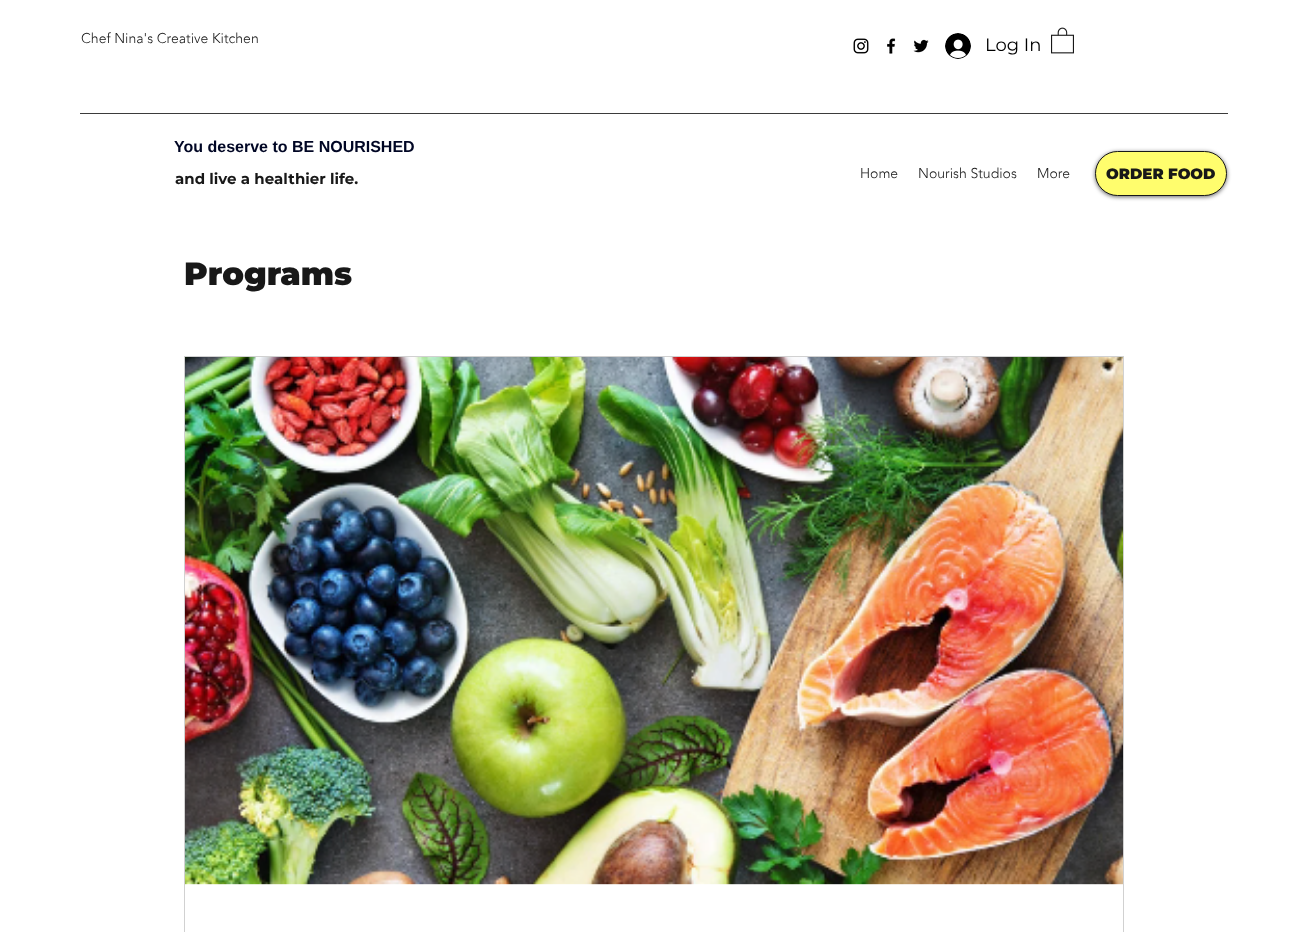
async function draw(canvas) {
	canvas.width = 1308;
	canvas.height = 932;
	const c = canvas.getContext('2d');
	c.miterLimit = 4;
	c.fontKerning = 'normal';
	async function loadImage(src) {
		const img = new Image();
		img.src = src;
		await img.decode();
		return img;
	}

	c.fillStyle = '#fff';
	c.fillRect(0, 0, 1308, 932);
	c.font = '300 14px "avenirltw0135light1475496"';
	c.fillStyle = '#181818';
	c.fillText('Chef Nina\'s Creative Kitchen', 81, 43);
	c.drawImage(await loadImage('img1.png'), 853, 38, 16, 16);
	c.drawImage(await loadImage('img2.png'), 887, 38, 9, 16);
	c.drawImage(await loadImage('img3.png'), 913, 39, 16, 14);
	c.drawImage(await loadImage('img4.png'), 945, 33, 26, 26);
	c.font = '18px Montserrat';
	c.fillStyle = '#000';
	c.fillText('Log In', 985, 51);
	c.drawImage(await loadImage('img5.png'), 1051, 27, 23, 27);
	c.fillStyle = '#3b3b3b';
	c.fillRect(80, 113, 1148, 1);
	c.font = 'bold 16px Liberation Sans';
	c.fillStyle = '#000624';
	c.fillText('You deserve to BE NOURISHED', 174, 152);
	c.font = 'bold 15px Montserrat';
	c.fillStyle = '#181818';
	c.fillText('and live a healthier life.', 175, 184);
	c.font = '300 14px "avenirltw0135light1475496"';
	for (const [text, x, y] of [
		['Home', 860, 178],
		['Nourish Studios', 918, 178],
		['More', 1037, 178],
	]) {
		c.fillText(text, x, y);
	}
	c.fillStyle = '#00000099';
	c.filter = 'blur(2px)';
	c.beginPath();
	c.roundRect(1095, 152, 132, 45, 22.5);
	c.fill();
	c.filter = 'none';
	c.fillStyle = '#fffd6d';
	c.beginPath();
	c.roundRect(1095.5, 151.5, 131, 44, 22);
	c.fill();
	c.strokeStyle = '#181818';
	c.stroke();
	c.font = '100 15px Montserrat';
	c.fillStyle = '#181818';
	c.fillText('ORDER FOOD', 1106, 179);
	c.font = '100 32px Montserrat';
	c.fillText('Programs', 184, 285);
	c.strokeStyle = '#d1d1d1';
	c.strokeRect(184.5, 356.5, 939, 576);
	c.drawImage(await loadImage('img6.png'), 185, 357, 938, 528);
}

draw(document.querySelector('canvas'));
